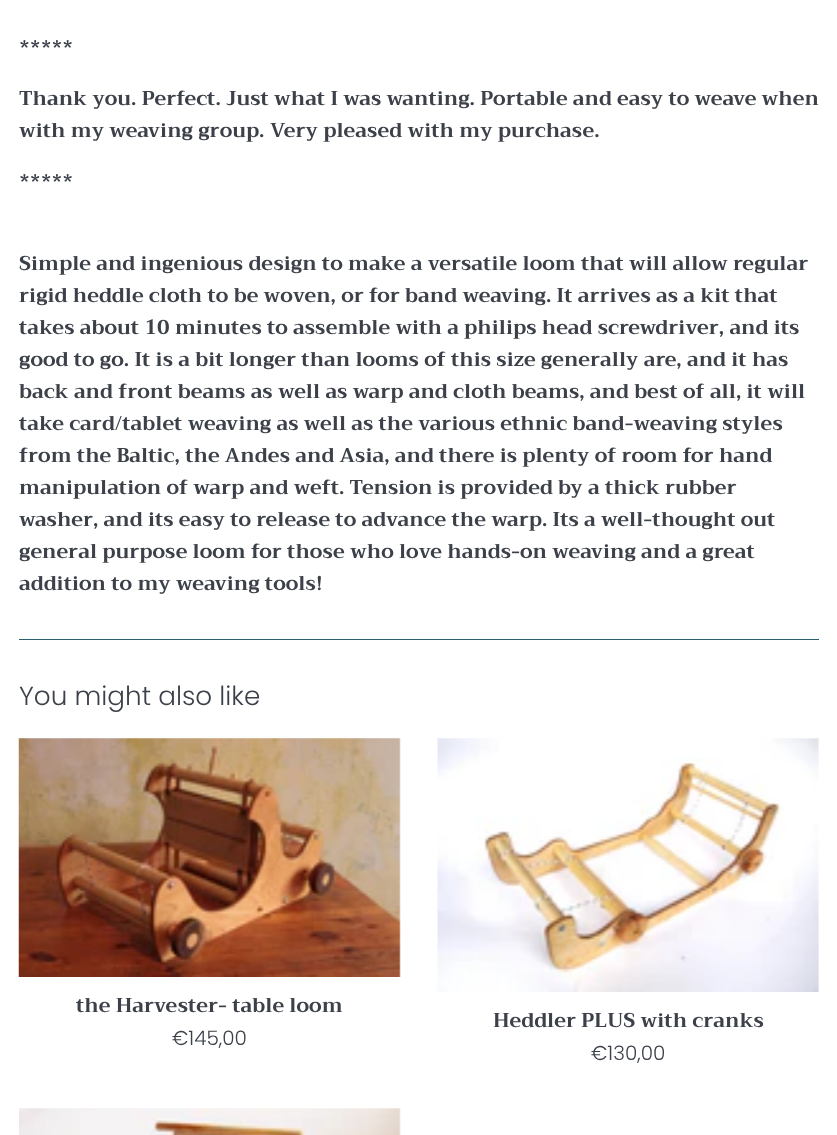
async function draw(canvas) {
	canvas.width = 837;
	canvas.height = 1135;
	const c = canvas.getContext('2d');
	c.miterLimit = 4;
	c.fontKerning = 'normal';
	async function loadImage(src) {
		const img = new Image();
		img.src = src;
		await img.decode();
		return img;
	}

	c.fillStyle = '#fff';
	c.fillRect(0, 0, 837, 1135);
	c.font = 'bold 20px Trirong';
	c.fillStyle = '#3c4049';
	for (const [text, x, y] of [
		['*****', 19, 54],
		['Thank you. Perfect. Just what I was wanting. Portable and easy to weave when', 19, 105],
		['with my weaving group. Very pleased with my purchase.', 19, 137],
		['*****', 19, 188],
		['Simple and ingenious design to make a versatile loom that will allow regular', 19, 270],
		['rigid heddle cloth to be woven, or for band weaving. It arrives as a kit that', 19, 302],
		['takes about 10 minutes to assemble with a philips head screwdriver, and its', 19, 334],
		['good to go. It is a bit longer than looms of this size generally are, and it has', 19, 366],
		['back and front beams as well as warp and cloth beams, and best of all, it will', 19, 398],
		['take card/tablet weaving as well as the various ethnic band-weaving styles', 19, 430],
		['from the Baltic, the Andes and Asia, and there is plenty of room for hand', 19, 462],
		['manipulation of warp and weft. Tension is provided by a thick rubber', 19, 494],
		['washer, and its easy to release to advance the warp. Its a well-thought out', 19, 526],
		['general purpose loom for those who love hands-on weaving and a great', 19, 558],
		['addition to my weaving tools!', 19, 590],
	]) {
		c.fillText(text, x, y);
	}
	c.fillStyle = '#2c5d6f';
	c.fillRect(19, 639, 800, 1);
	c.font = '300 26.25px Poppins';
	c.fillStyle = '#3c4049';
	c.fillText('You might also like', 19, 705);
	c.drawImage(await loadImage('img1.png'), 18, 738, 383, 239);
	c.font = 'bold 20px Trirong';
	c.fillText('the Harvester- table loom', 76, 1012);
	c.font = '300 20px Poppins';
	c.fillText('€145,00', 172, 1045);
	c.drawImage(await loadImage('img2.png'), 437, 738, 382, 254);
	c.font = 'bold 20px Trirong';
	c.fillText('Heddler PLUS with cranks', 493, 1027);
	c.font = '300 20px Poppins';
	c.fillText('€130,00', 591, 1060);
	c.drawImage(await loadImage('img3.png'), 19, 1108, 382, 27);
}

draw(document.querySelector('canvas'));
